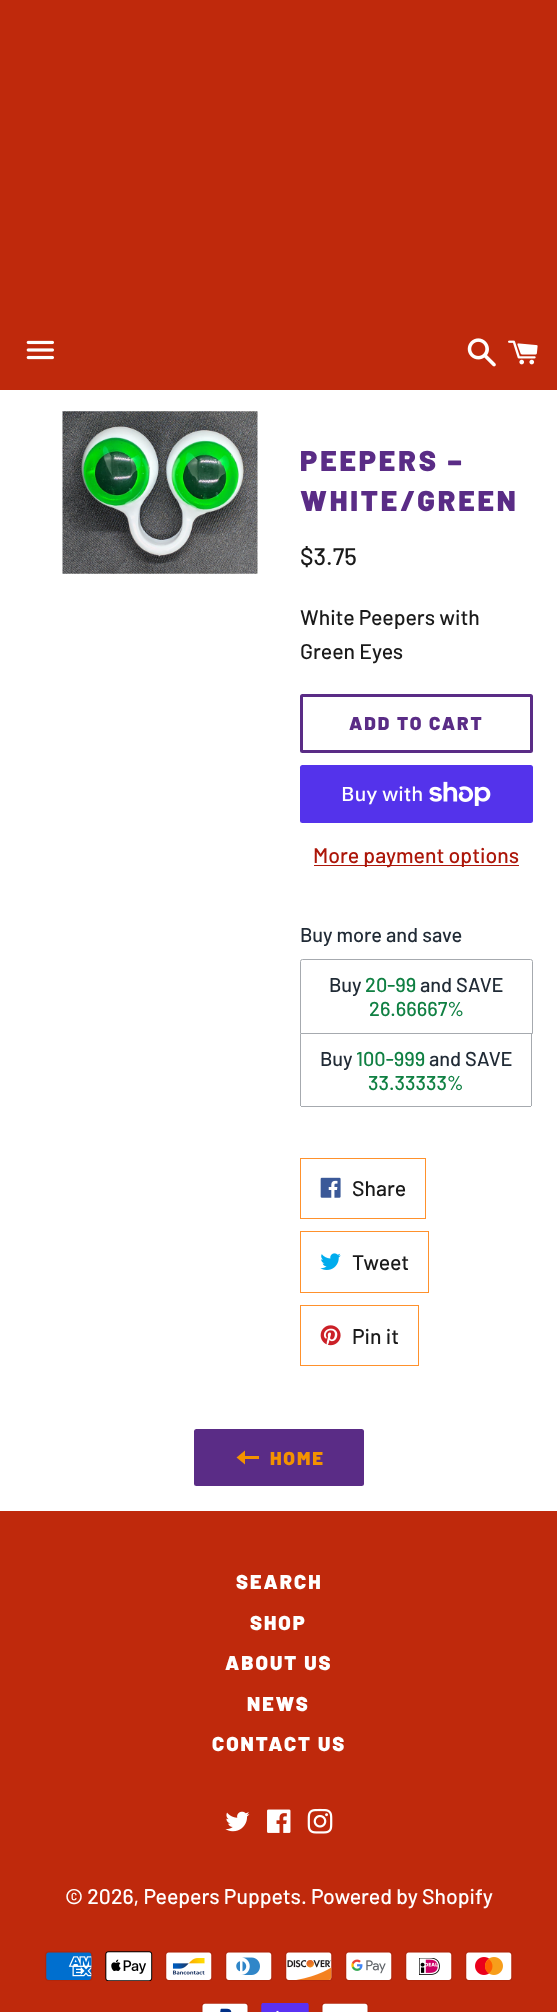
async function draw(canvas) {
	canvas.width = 557;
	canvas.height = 2012;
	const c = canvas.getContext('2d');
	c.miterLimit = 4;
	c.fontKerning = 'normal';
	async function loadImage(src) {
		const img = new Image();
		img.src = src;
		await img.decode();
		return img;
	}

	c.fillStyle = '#fff';
	c.fillRect(0, 0, 557, 2012);
	c.fillStyle = '#bf290c';
	c.fillRect(0, 0, 557, 390);
	c.drawImage(await loadImage('img1.png'), 26, 340, 28, 20);
	c.drawImage(await loadImage('img2.png'), 467, 338, 29, 29);
	c.drawImage(await loadImage('img3.png'), 508, 340, 30, 25);
	c.drawImage(await loadImage('img4.png'), 62, 411, 196, 163);
	c.letterSpacing = '2.9px';
	c.font = '900 28.75px Barlow';
	c.fillStyle = '#5a2c86';
	c.fillText('PEEPERS –', 300, 471);
	c.fillText('WHITE/GREEN', 300, 511);
	c.letterSpacing = '0px';
	c.font = '500 24px Barlow';
	c.fillStyle = '#1a1a1a';
	c.fillText('$3.75', 300, 565);
	c.font = '500 21.25px Barlow';
	c.fillText('White Peepers with', 300, 625);
	c.fillText('Green Eyes', 300, 659);
	c.beginPath();
	c.roundRect(301.5, 695.5, 230, 56, 1);
	c.strokeStyle = '#5a2c86';
	c.lineWidth = 3;
	c.stroke();
	c.letterSpacing = '1.9px';
	c.font = '900 18.75px Barlow';
	c.fillStyle = '#5a2c86';
	c.fillText('ADD TO CART', 349, 730);
	c.fillStyle = '#5433eb';
	c.beginPath();
	c.roundRect(300, 765, 233, 58, 2.5);
	c.fill();
	c.letterSpacing = '0px';
	c.font = '500 20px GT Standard';
	c.fillStyle = '#fff';
	c.fillText('Buy with', 341, 801);
	c.drawImage(await loadImage('img5.png'), 429, 781, 62, 25);
	c.fillStyle = '#ac1609';
	c.fillRect(314, 865, 205, 1);
	c.font = '500 21.25px Barlow';
	c.fillText('More payment options', 313, 863);
	c.font = '500 20px Barlow';
	c.fillStyle = '#212b36';
	c.fillText('Buy more and save', 300, 942);
	c.beginPath();
	c.roundRect(300.5, 959.5, 232, 74, [2, 2, 0, 0]);
	c.strokeStyle = '#a6aaaf';
	c.lineWidth = 1;
	c.stroke();
	c.fillText('Buy', 329, 992);
	c.fillStyle = '#108043';
	c.fillText('20-99', 365, 992);
	c.fillStyle = '#212b36';
	c.fillText('and SAVE', 420, 992);
	c.fillStyle = '#108043';
	c.fillText('26.66667%', 369, 1016);
	for (const [x, y, w, h, color] of [
		[531, 1034, 1, 72, '#a6aaaf'],
		[301, 1106, 230, 1, '#a6aaaf'],
		[300, 1034, 1, 72, '#a6aaaf'],
	]) {
		c.fillStyle = color;
		c.fillRect(x, y, w, h);
	}
	c.fillStyle = '#212b36';
	c.fillText('Buy', 320, 1066);
	c.fillStyle = '#108043';
	c.fillText('100-999', 356, 1066);
	c.fillStyle = '#212b36';
	c.fillText('and SAVE', 429, 1066);
	c.fillStyle = '#108043';
	c.fillText('33.33333%', 368, 1090);
	c.strokeStyle = '#ff912c';
	c.strokeRect(300.5, 1158.5, 125, 60);
	c.drawImage(await loadImage('img6.png'), 320, 1177, 21, 21);
	c.font = '500 21.25px Barlow';
	c.fillStyle = '#1a1a1a';
	c.fillText('Share', 352, 1196);
	c.strokeRect(300.5, 1231.5, 128, 61);
	c.drawImage(await loadImage('img7.png'), 320, 1253, 21, 17);
	c.fillText('Tweet', 352, 1270);
	c.strokeRect(300.5, 1305.5, 118, 60);
	c.drawImage(await loadImage('img8.png'), 320, 1325, 21, 21);
	c.fillText('Pin it', 352, 1344);
	c.fillStyle = '#5a2c86';
	c.beginPath();
	c.roundRect(194, 1429, 170, 57, 2.5);
	c.fill();
	c.fillStyle = '#f39200';
	c.beginPath();
	c.moveTo(245, 1456);
	c.lineTo(245, 1450.5);
	c.lineTo(236.5, 1457.5);
	c.lineTo(245, 1464.5);
	c.lineTo(245, 1459);
	c.lineTo(259, 1459);
	c.lineTo(259, 1456);
	c.closePath();
	c.fill();
	c.letterSpacing = '1.9px';
	c.font = '900 18.75px Barlow';
	c.fillText('HOME', 270, 1465);
	c.fillStyle = '#bf290c';
	c.fillRect(0, 1511, 557, 501);
	c.letterSpacing = '2px';
	c.font = '900 20px Barlow';
	c.fillStyle = '#fff';
	for (const [text, x, y] of [
		['SEARCH', 236, 1589],
		['SHOP', 250, 1630],
		['ABOUT US', 225, 1670],
		['NEWS', 247, 1711],
		['CONTACT US', 212, 1751],
	]) {
		c.fillText(text, x, y);
	}
	c.drawImage(await loadImage('img9.png'), 225, 1811, 25, 21);
	c.drawImage(await loadImage('img10.png'), 267, 1809, 24, 24);
	c.drawImage(await loadImage('img11.png'), 307, 1808, 26, 26);
	c.letterSpacing = '0px';
	c.font = '500 21.25px Barlow';
	c.fillText('© 2026, Peepers Puppets. Powered by Shopify', 65, 1904);
	c.drawImage(await loadImage('img12.png'), 45, 1951, 48, 30);
	c.drawImage(await loadImage('img13.png'), 105, 1951, 48, 30);
	c.drawImage(await loadImage('img14.png'), 165, 1951, 48, 30);
	c.drawImage(await loadImage('img15.png'), 225, 1951, 48, 30);
	c.drawImage(await loadImage('img16.png'), 285, 1951, 48, 30);
	c.drawImage(await loadImage('img17.png'), 345, 1951, 48, 30);
	c.drawImage(await loadImage('img18.png'), 405, 1951, 48, 30);
	c.drawImage(await loadImage('img19.png'), 465, 1951, 48, 30);
	c.drawImage(await loadImage('img20.png'), 201, 2003, 48, 9);
	c.drawImage(await loadImage('img21.png'), 261, 2003, 48, 9);
	c.drawImage(await loadImage('img22.png'), 321, 2003, 48, 9);
}

draw(document.querySelector('canvas'));
